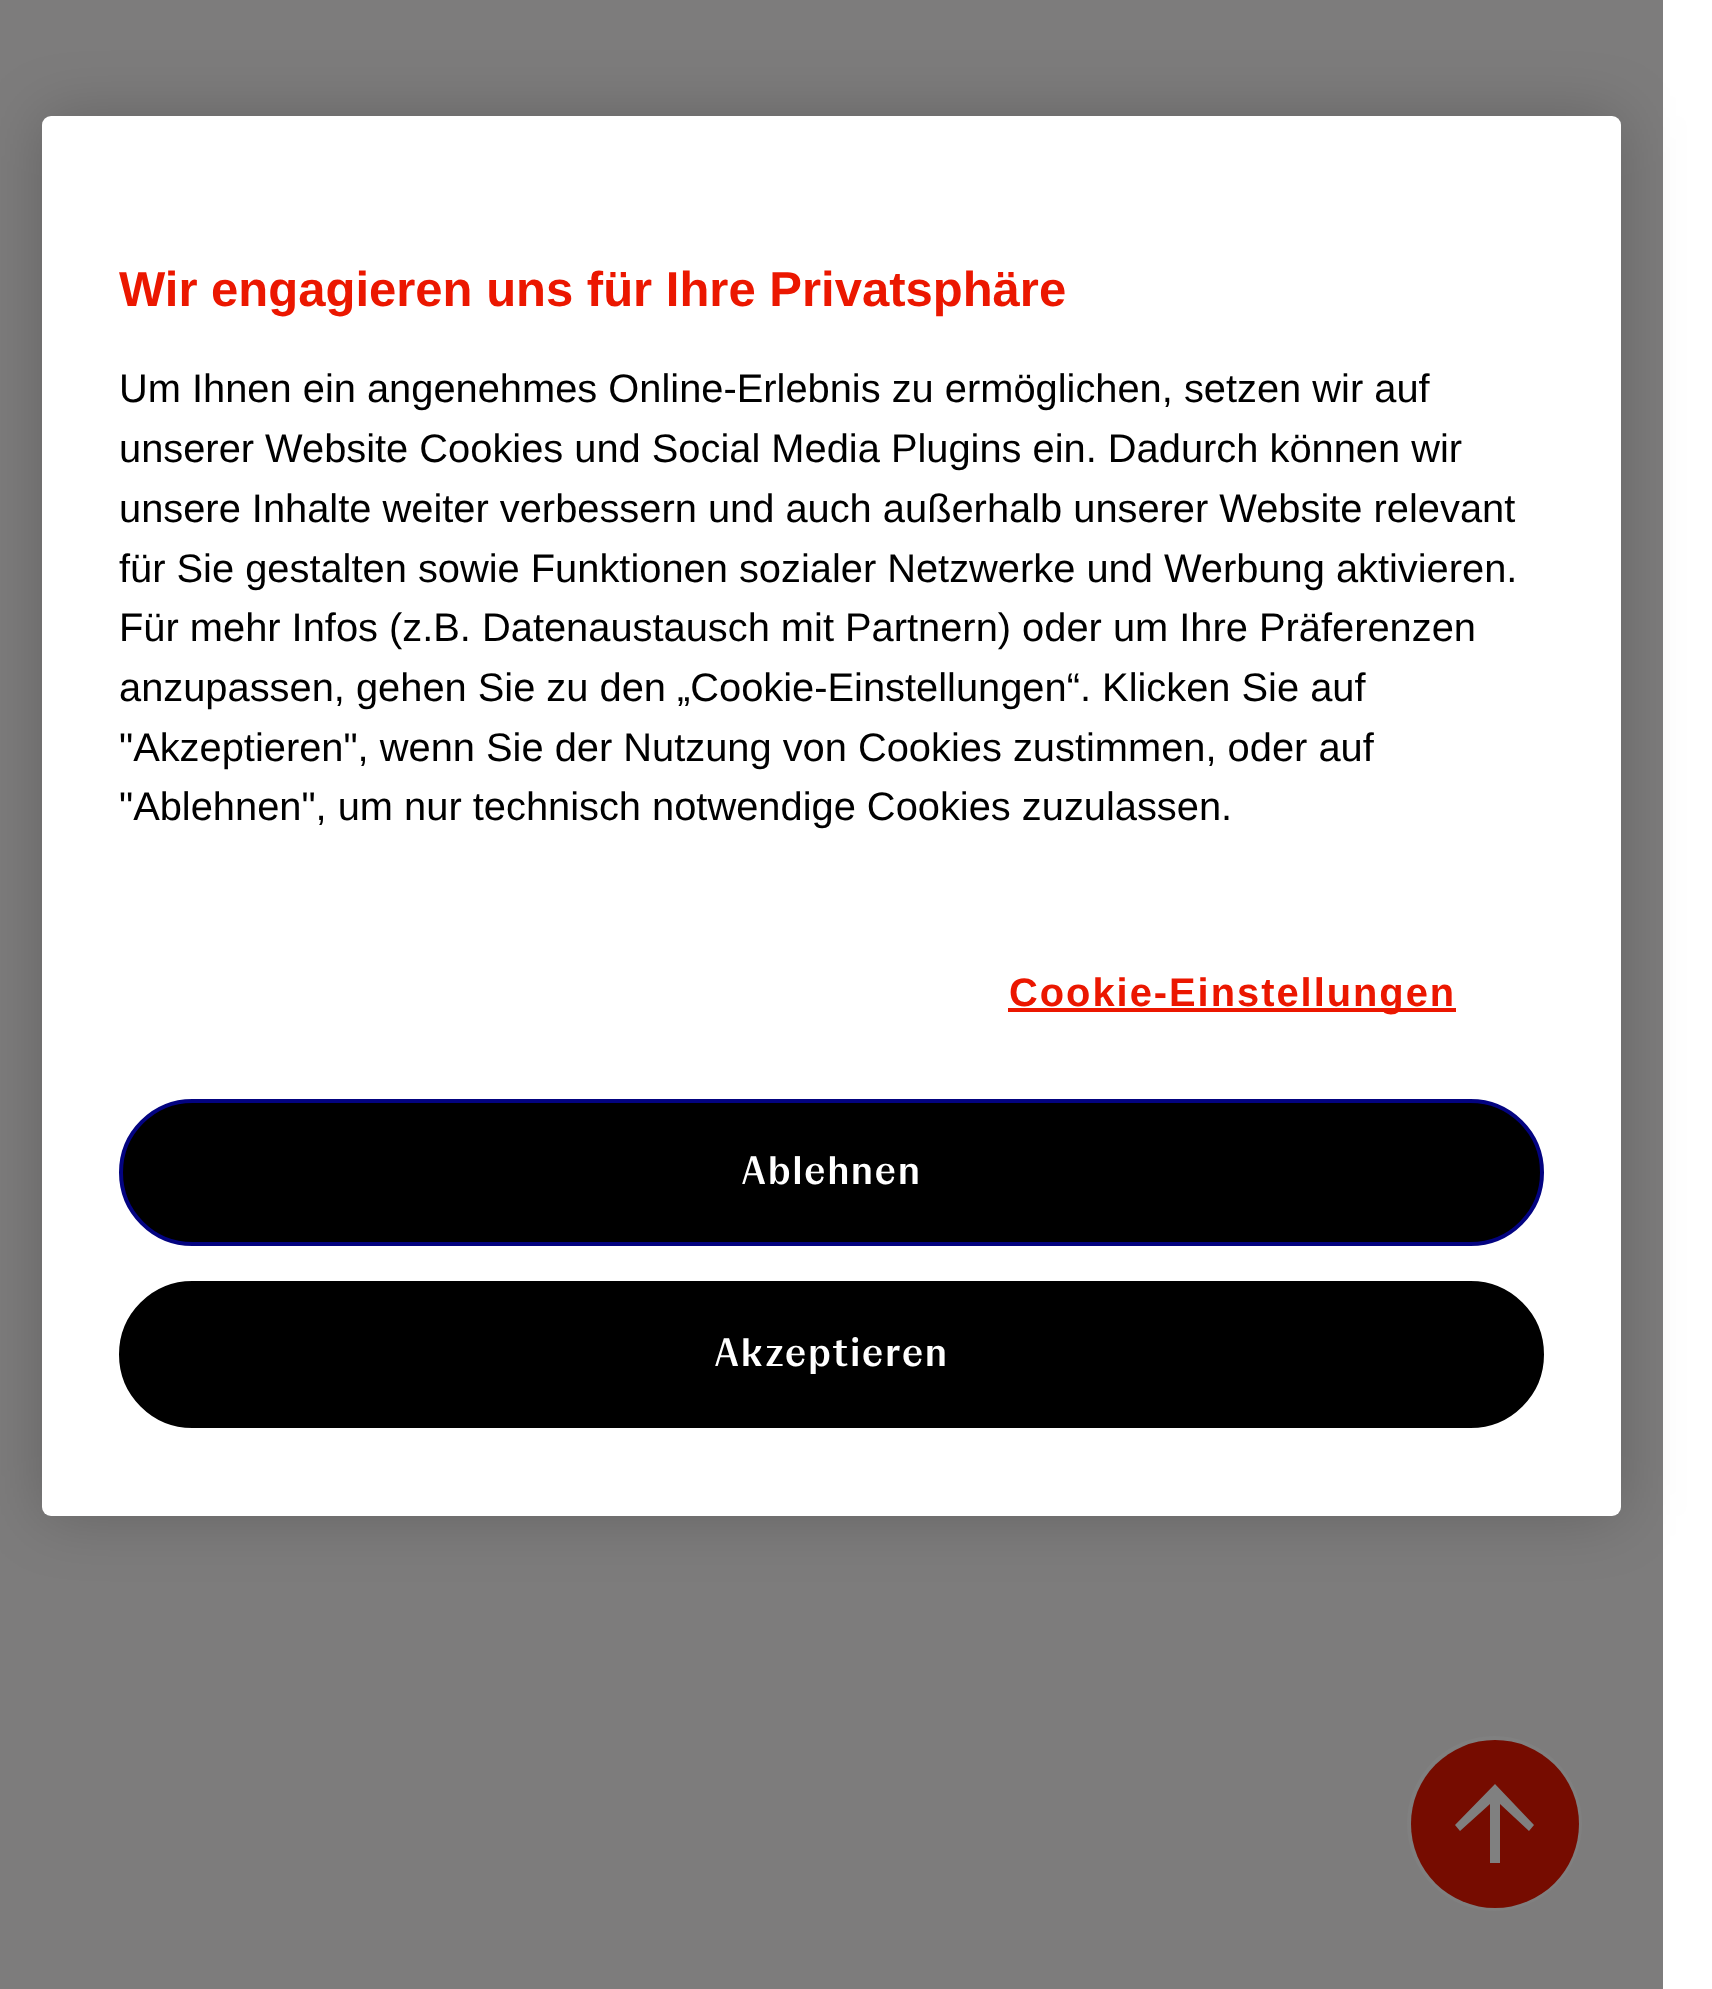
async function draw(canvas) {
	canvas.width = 1712;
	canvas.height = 1989;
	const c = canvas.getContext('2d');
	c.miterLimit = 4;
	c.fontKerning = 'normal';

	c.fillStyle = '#fff';
	c.fillRect(0, 0, 1712, 1989);
	c.fillStyle = '#7d7c7c';
	c.fillRect(0, 0, 1663, 1989);
	c.fillStyle = '#00000033';
	c.filter = 'blur(31.5px)';
	c.beginPath();
	c.roundRect(42, 116, 1579, 1400, 9);
	c.fill();
	c.filter = 'none';
	c.fillStyle = '#fff';
	c.beginPath();
	c.roundRect(42, 116, 1579, 1400, 9);
	c.fill();
	c.font = 'bold 49px Liberation Sans';
	c.fillStyle = '#eb1700';
	c.fillText('Wir engagieren uns für Ihre Privatsphäre', 119, 306);
	c.font = '39.85px Liberation Sans';
	c.fillStyle = '#000';
	for (const [text, x, y] of [
		['Um Ihnen ein angenehmes Online-Erlebnis zu ermöglichen, setzen wir auf', 119, 402],
		['unserer Website Cookies und Social Media Plugins ein. Dadurch können wir', 119, 462],
		['unsere Inhalte weiter verbessern und auch außerhalb unserer Website relevant', 119, 522],
		['für Sie gestalten sowie Funktionen sozialer Netzwerke und Werbung aktivieren.', 119, 582],
		['Für mehr Infos (z.B. Datenaustausch mit Partnern) oder um Ihre Präferenzen', 119, 641],
		['anzupassen, gehen Sie zu den „Cookie-Einstellungen“. Klicken Sie auf', 119, 701],
		['"Akzeptieren", wenn Sie der Nutzung von Cookies zustimmen, oder auf', 119, 761],
		['"Ablehnen", um nur technisch notwendige Cookies zuzulassen.', 119, 820],
	]) {
		c.fillText(text, x, y);
	}
	c.fillStyle = '#eb1700';
	c.fillRect(1008, 1008, 448, 4);
	c.letterSpacing = '2px';
	c.font = 'bold 39.85px Liberation Sans';
	c.fillText('Cookie-Einstellungen', 1009, 1006);
	c.fillStyle = '#000';
	c.beginPath();
	c.roundRect(121, 1101, 1421, 143, 71.5);
	c.fill();
	c.strokeStyle = '#030380';
	c.lineWidth = 4;
	c.stroke();
	c.font = 'bold 39.85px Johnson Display';
	c.fillStyle = '#fff';
	c.fillText('Ablehnen', 741, 1184);
	c.fillStyle = '#000';
	c.beginPath();
	c.roundRect(121, 1283, 1421, 143, 71.5);
	c.fill();
	c.strokeStyle = '#000';
	c.stroke();
	c.fillStyle = '#fff';
	c.fillText('Akzeptieren', 714, 1366);
	c.beginPath();
	c.arc(1494.5, 1823.5, 85.5, 0, 2 * Math.PI);
	c.strokeStyle = '#808080';
	c.stroke();
	c.fillStyle = '#760c00';
	c.beginPath();
	c.arc(1495, 1824, 84, 0, 2 * Math.PI);
	c.fill();
	c.fillStyle = '#808080';
	c.beginPath();
	c.moveTo(1495, 1784);
	c.lineTo(1534, 1825);
	c.lineTo(1529, 1831);
	c.lineTo(1500, 1804);
	c.lineTo(1500, 1863);
	c.lineTo(1490, 1863);
	c.lineTo(1490, 1804);
	c.lineTo(1460, 1831);
	c.lineTo(1455, 1825);
	c.closePath();
	c.fill();
}

draw(document.querySelector('canvas'));
